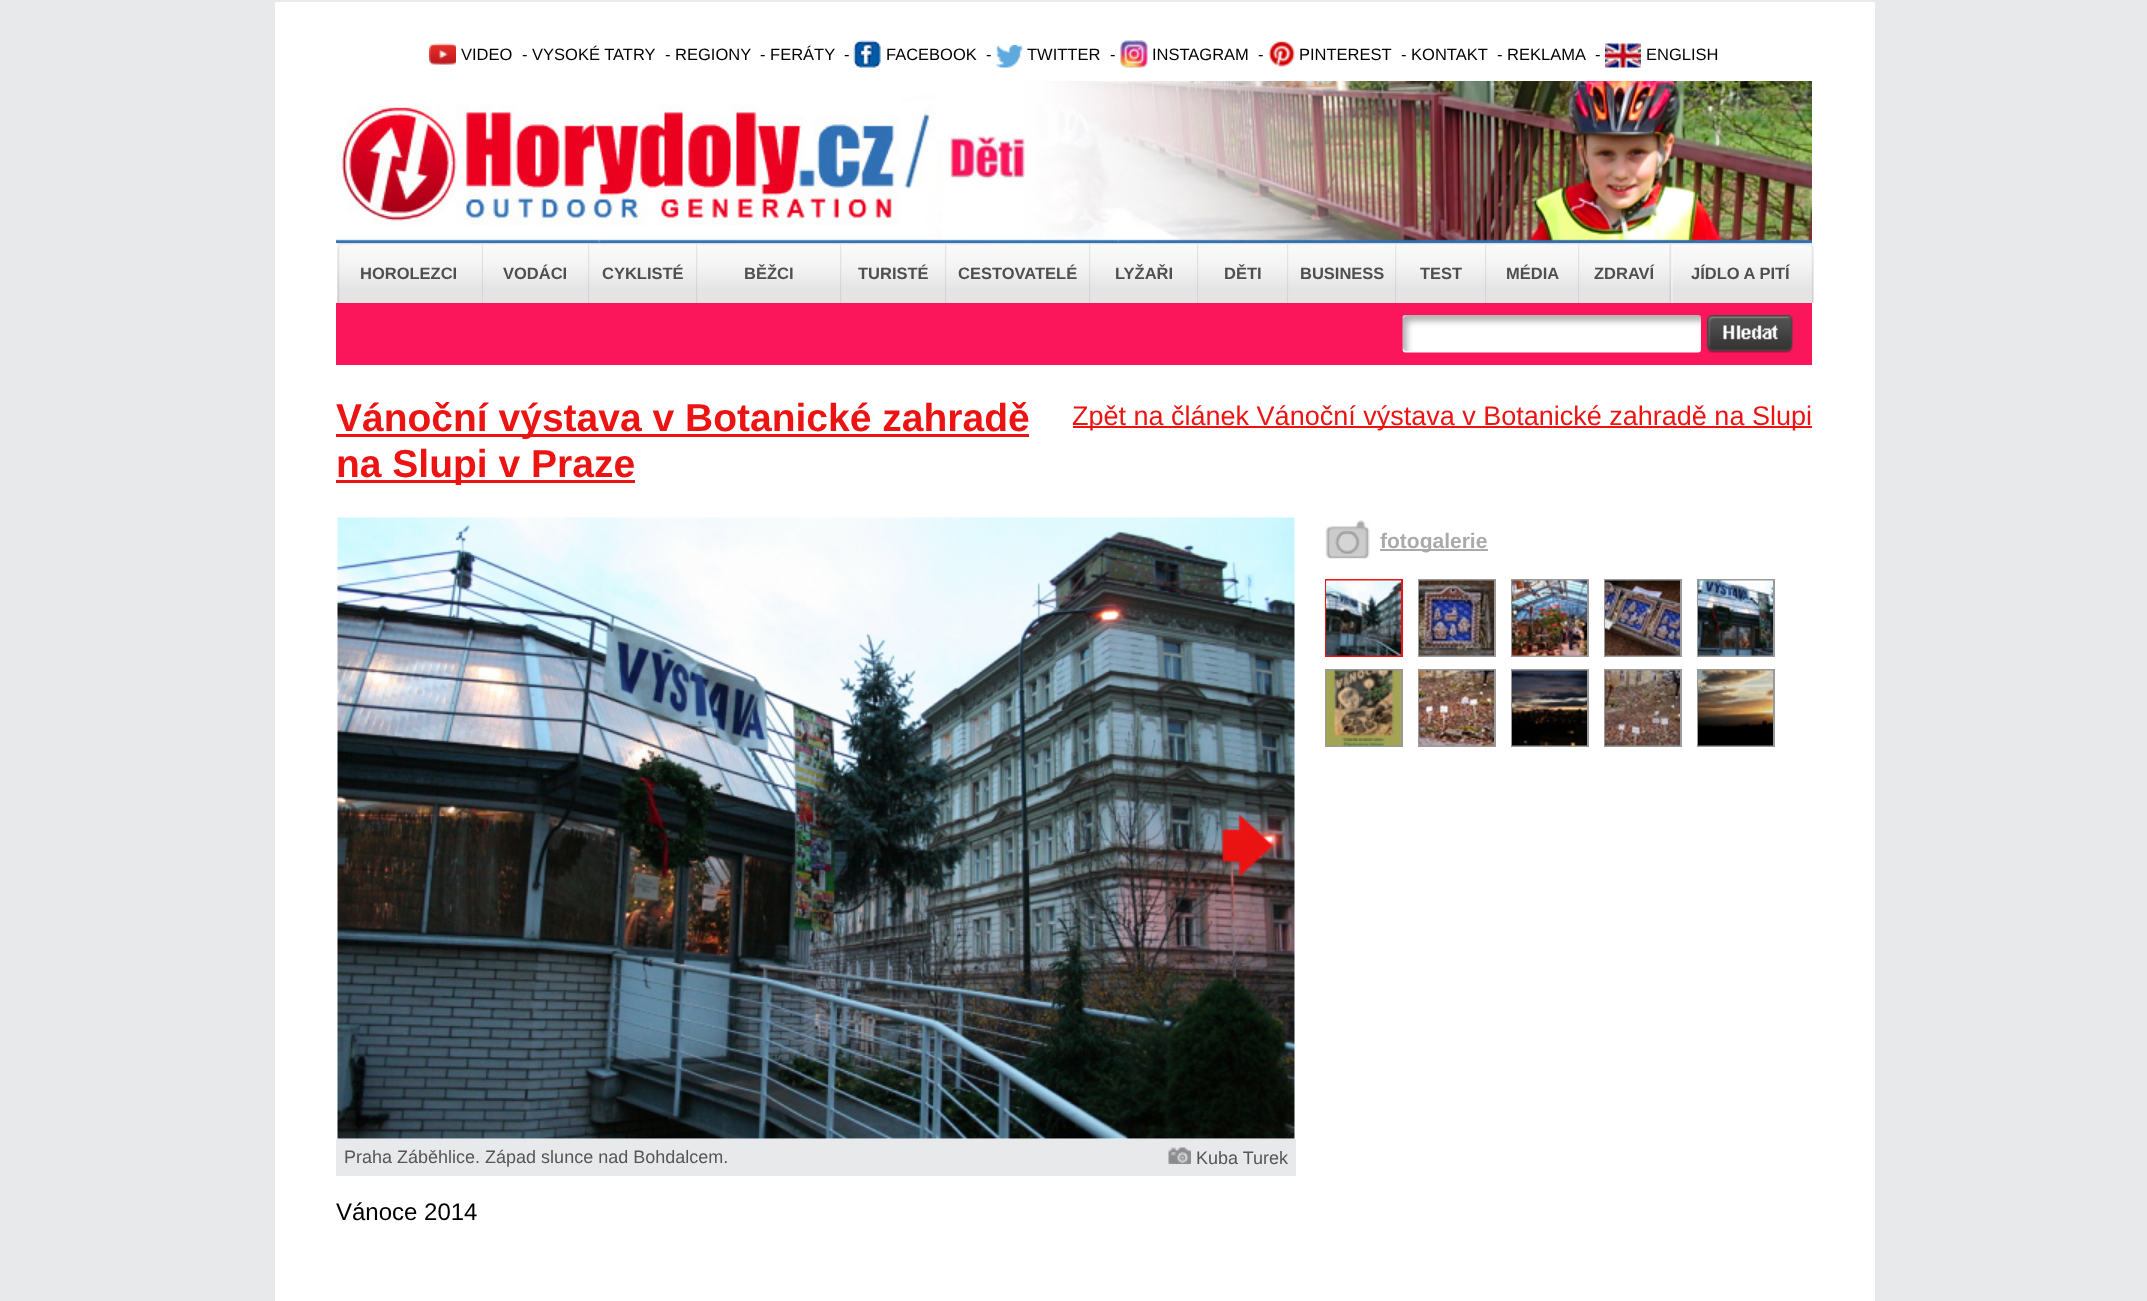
async function draw(canvas) {
	canvas.width = 2147;
	canvas.height = 1301;
	const c = canvas.getContext('2d');
	c.miterLimit = 4;
	c.fontKerning = 'normal';
	async function loadImage(src) {
		const img = new Image();
		img.src = src;
		await img.decode();
		return img;
	}

	c.fillStyle = '#e7e9ea';
	c.fillRect(0, 0, 2147, 1301);
	c.fillStyle = '#fff';
	c.fillRect(275, 2, 1600, 1299);
	c.drawImage(await loadImage('img1.png'), 429, 43, 27, 22);
	c.font = '16.5px Liberation Sans';
	c.fillStyle = '#000';
	for (const [text, x, y] of [
		['VIDEO', 461, 60],
		['- VYSOKÉ TATRY', 522, 60],
		['- REGIONY', 665, 60],
		['- FERÁTY', 760, 60],
		['-', 844, 60],
	]) {
		c.fillText(text, x, y);
	}
	c.drawImage(await loadImage('img2.png'), 853, 40, 28, 28);
	c.fillText('FACEBOOK', 886, 60);
	c.fillText('-', 986, 60);
	c.drawImage(await loadImage('img3.png'), 996, 45, 27, 23);
	c.fillText('TWITTER', 1027, 60);
	c.fillText('-', 1110, 60);
	c.drawImage(await loadImage('img4.png'), 1120, 40, 28, 28);
	c.fillText('INSTAGRAM', 1152, 60);
	c.fillText('-', 1258, 60);
	c.drawImage(await loadImage('img5.png'), 1268, 40, 27, 28);
	for (const [text, x, y] of [
		['PINTEREST', 1299, 60],
		['- KONTAKT', 1401, 60],
		['- REKLAMA', 1497, 60],
		['-', 1595, 60],
	]) {
		c.fillText(text, x, y);
	}
	c.drawImage(await loadImage('img6.png'), 1605, 43, 36, 25);
	c.fillText('ENGLISH', 1646, 60);
	c.drawImage(await loadImage('img7.png'), 336, 81, 1476, 162);
	c.drawImage(await loadImage('img8.png'), 337, 243, 1475, 60);
	c.drawImage(await loadImage('img9.png'), 337, 245, 140, 58);
	c.font = 'bold 16.5px Liberation Sans';
	c.fillStyle = '#504f4f';
	c.fillText('HOROLEZCI', 360, 279);
	c.drawImage(await loadImage('img10.png'), 481, 244, 2, 59);
	c.drawImage(await loadImage('img11.png'), 483, 244, 105, 59);
	c.fillText('VODÁCI', 503, 279);
	c.drawImage(await loadImage('img12.png'), 588, 244, 2, 59);
	c.drawImage(await loadImage('img13.png'), 589, 244, 107, 59);
	c.fillText('CYKLISTÉ', 602, 279);
	c.drawImage(await loadImage('img14.png'), 696, 244, 144, 59);
	c.drawImage(await loadImage('img15.png'), 697, 244, 143, 59);
	c.fillText('BĚŽCI', 744, 279);
	c.drawImage(await loadImage('img16.png'), 840, 244, 2, 59);
	c.drawImage(await loadImage('img17.png'), 841, 244, 104, 59);
	c.fillText('TURISTÉ', 858, 279);
	c.drawImage(await loadImage('img18.png'), 945, 244, 144, 59);
	c.drawImage(await loadImage('img19.png'), 946, 244, 143, 59);
	c.fillText('CESTOVATELÉ', 958, 279);
	c.drawImage(await loadImage('img20.png'), 1089, 244, 2, 59);
	c.drawImage(await loadImage('img21.png'), 1090, 244, 107, 59);
	c.fillText('LYŽAŘI', 1115, 279);
	c.drawImage(await loadImage('img22.png'), 1197, 244, 2, 59);
	c.drawImage(await loadImage('img23.png'), 1198, 244, 89, 59);
	c.fillText('DĚTI', 1224, 279);
	c.drawImage(await loadImage('img24.png'), 1287, 244, 2, 59);
	c.drawImage(await loadImage('img25.png'), 1288, 244, 107, 59);
	c.fillText('BUSINESS', 1300, 279);
	c.drawImage(await loadImage('img20.png'), 1395, 244, 2, 59);
	c.drawImage(await loadImage('img26.png'), 1396, 244, 89, 59);
	c.fillText('TEST', 1420, 279);
	c.drawImage(await loadImage('img22.png'), 1485, 244, 2, 59);
	c.drawImage(await loadImage('img27.png'), 1486, 244, 92, 59);
	c.fillText('MÉDIA', 1506, 279);
	c.drawImage(await loadImage('img16.png'), 1578, 244, 2, 59);
	c.drawImage(await loadImage('img26.png'), 1579, 244, 89, 59);
	c.fillText('ZDRAVÍ', 1594, 279);
	c.drawImage(await loadImage('img28.png'), 1669, 244, 145, 59);
	c.fillText('JÍDLO A PITÍ', 1691, 279);
	c.fillStyle = '#fb165b';
	c.fillRect(336, 303, 1476, 62);
	c.drawImage(await loadImage('img29.png'), 1402, 315, 299, 38);
	c.drawImage(await loadImage('img30.png'), 1707, 315, 86, 38);
	c.fillStyle = '#ec1313';
	c.fillRect(336, 434, 693, 3);
	c.font = 'bold 39px Liberation Sans';
	c.fillText('Vánoční výstava v Botanické zahradě', 336, 431);
	c.fillRect(336, 480, 299, 3);
	c.fillText('na Slupi v Praze', 336, 477);
	c.fillRect(1073, 426, 739, 2);
	c.font = '27px Liberation Sans';
	c.fillText('Zpět na článek Vánoční výstava v Botanické zahradě na Slupi', 1072, 425);
	c.drawImage(await loadImage('img31.png'), 1325, 520, 45, 39);
	c.fillStyle = '#aaa';
	c.fillRect(1380, 549, 108, 2);
	c.font = 'bold 21px Liberation Sans';
	c.fillText('fotogalerie', 1380, 548);
	c.strokeStyle = '#ec1313';
	c.lineWidth = 2;
	c.strokeRect(1326, 580, 76, 76);
	c.drawImage(await loadImage('img32.png'), 1326, 580, 75, 76);
	c.strokeStyle = '#999';
	c.strokeRect(1419, 580, 76, 76);
	c.drawImage(await loadImage('img33.png'), 1419, 580, 75, 76);
	c.strokeRect(1512, 580, 76, 76);
	c.drawImage(await loadImage('img34.png'), 1512, 580, 75, 76);
	c.strokeRect(1605, 580, 76, 76);
	c.drawImage(await loadImage('img35.png'), 1605, 580, 75, 76);
	c.strokeRect(1698, 580, 76, 76);
	c.drawImage(await loadImage('img36.png'), 1698, 580, 75, 76);
	c.strokeRect(1326, 670, 76, 76);
	c.drawImage(await loadImage('img37.png'), 1326, 670, 75, 76);
	c.strokeRect(1419, 670, 76, 76);
	c.drawImage(await loadImage('img38.png'), 1419, 670, 75, 76);
	c.strokeRect(1512, 670, 76, 76);
	c.drawImage(await loadImage('img39.png'), 1512, 670, 75, 76);
	c.strokeRect(1605, 670, 76, 76);
	c.drawImage(await loadImage('img40.png'), 1605, 670, 75, 76);
	c.strokeRect(1698, 670, 76, 76);
	c.drawImage(await loadImage('img41.png'), 1698, 670, 75, 76);
	c.drawImage(await loadImage('img42.png'), 337, 517, 958, 622);
	c.drawImage(await loadImage('img43.png'), 1222, 814, 52, 64);
	c.fillStyle = '#e8e9eb';
	c.fillRect(336, 1139, 960, 37);
	c.font = '18px Liberation Sans';
	c.fillStyle = '#555658';
	c.fillText('Praha Záběhlice. Západ slunce nad Bohdalcem.', 344, 1163);
	c.drawImage(await loadImage('img44.png'), 1168, 1147, 23, 17);
	c.fillText('Kuba Turek', 1196, 1164);
	c.font = '24px Liberation Sans';
	c.fillStyle = '#000';
	c.fillText('Vánoce 2014', 336, 1220);
}

draw(document.querySelector('canvas'));
